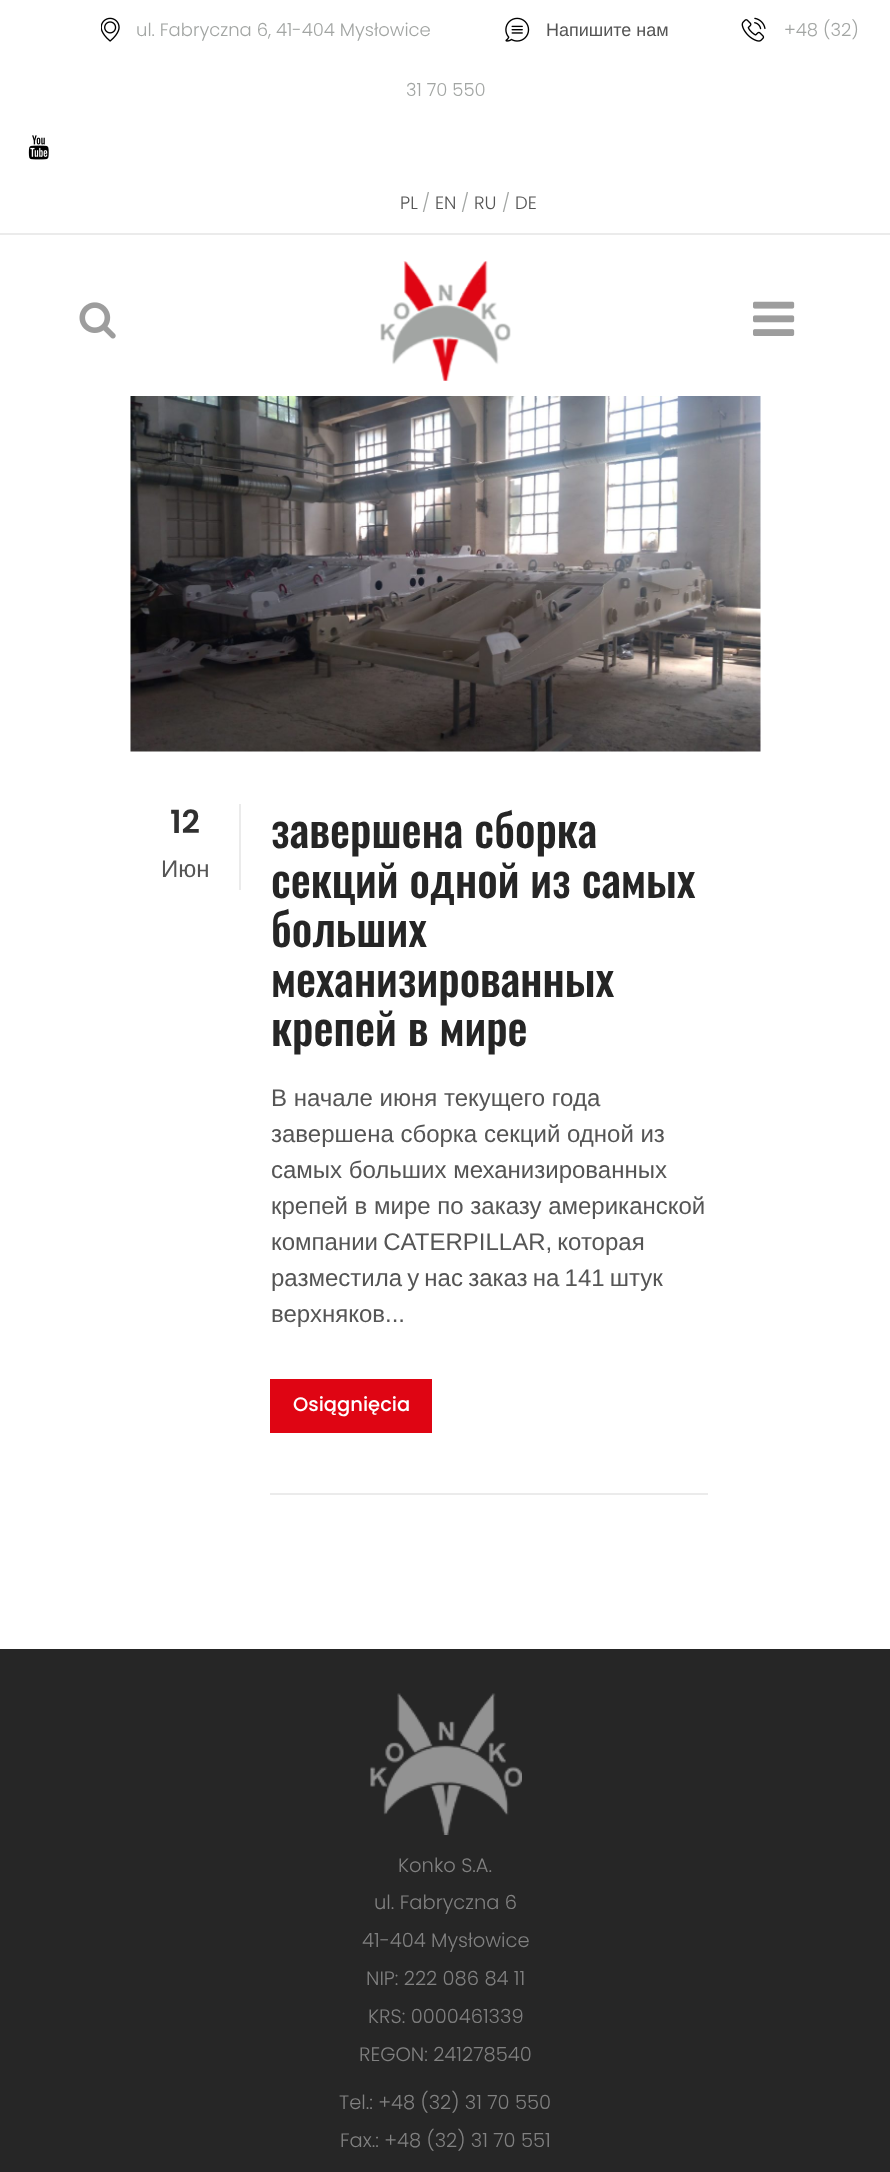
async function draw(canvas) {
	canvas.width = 890;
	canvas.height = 2172;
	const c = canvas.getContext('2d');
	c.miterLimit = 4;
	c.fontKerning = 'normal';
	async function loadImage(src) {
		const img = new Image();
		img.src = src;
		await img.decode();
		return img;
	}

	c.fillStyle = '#fff';
	c.fillRect(0, 0, 890, 2172);
	c.fillStyle = '#ebebeb';
	c.fillRect(0, 233, 890, 2);
	c.drawImage(await loadImage('img1.png'), 101, 17, 19, 25);
	c.font = '300 18px Poppins';
	c.fillStyle = '#a2a5a3';
	c.fillText('ul. Fabryczna 6, 41-404 Mysłowice', 136, 36);
	c.drawImage(await loadImage('img2.png'), 505, 17, 25, 25);
	c.font = '18px Liberation Sans';
	c.fillStyle = '#555';
	c.fillText('Напишите нам', 546, 36);
	c.drawImage(await loadImage('img3.png'), 741, 17, 25, 25);
	c.font = '300 18px Poppins';
	c.fillStyle = '#a2a5a3';
	c.fillText('+48 (32)', 784, 36);
	c.fillText('31 70 550', 406, 96);
	c.drawImage(await loadImage('img4.png'), 28, 135, 21, 25);
	c.fillStyle = '#555';
	c.fillText('PL', 400, 209);
	c.fillStyle = '#a2a5a3';
	c.fillText('/', 422, 209);
	c.fillStyle = '#555';
	c.fillText('EN', 435, 209);
	c.fillStyle = '#a2a5a3';
	c.fillText('/', 461, 209);
	c.fillStyle = '#555';
	c.fillText('RU', 474, 209);
	c.fillStyle = '#a2a5a3';
	c.fillText('/', 502, 209);
	c.fillStyle = '#555';
	c.fillText('DE', 515, 209);
	c.drawImage(await loadImage('img5.png'), 79, 302, 37, 37);
	c.drawImage(await loadImage('img6.png'), 380, 261, 131, 120);
	c.drawImage(await loadImage('img7.png'), 753, 301, 42, 35);
	c.drawImage(await loadImage('img8.png'), 130, 396, 631, 356);
	c.fillStyle = '#ebebeb';
	c.fillRect(239, 804, 2, 86);
	c.font = '600 32px Poppins';
	c.fillStyle = '#303030';
	c.fillText('12', 170, 833);
	c.font = '24px Liberation Sans';
	c.fillStyle = '#555';
	c.fillText('Июн', 161, 877);
	c.font = '500 45px Oswald';
	c.fillStyle = '#252525';
	for (const [text, x, y] of [
		['завершена сборка', 271, 848],
		['секций одной из самых', 271, 898],
		['больших', 271, 947],
		['механизированных', 271, 997],
		['крепей в мире', 271, 1046],
	]) {
		c.fillText(text, x, y);
	}
	c.font = '24px Liberation Sans';
	c.fillStyle = '#555';
	for (const [text, x, y] of [
		['В начале июня текущего года', 271, 1106],
		['завершена сборка секций одной из', 271, 1142],
		['самых больших механизированных', 271, 1178],
		['крепей в мире по заказу американской', 271, 1214],
	]) {
		c.fillText(text, x, y);
	}
	c.wordSpacing = '-1.5px';
	c.fillText('компании CATERPILLAR, которая', 271, 1250);
	c.fillText('разместила у нас заказ на 141 штук', 271, 1286);
	c.wordSpacing = '0px';
	c.fillText('верхняков...', 271, 1322);
	c.fillStyle = '#ebebeb';
	c.fillRect(270, 1493, 438, 2);
	c.fillStyle = '#df0513';
	c.fillRect(270, 1379, 162, 54);
	c.font = '500 19.5px Poppins';
	c.fillStyle = '#fff';
	c.fillText('Osiągnięcia', 293, 1411);
	c.fillStyle = '#262626';
	c.fillRect(0, 1649, 890, 523);
	c.drawImage(await loadImage('img9.png'), 370, 1693, 152, 142);
	c.font = '300 19.5px Poppins';
	c.fillStyle = '#818181';
	for (const [text, x, y] of [
		['Konko S.A.', 398, 1872],
		['ul. Fabryczna 6', 374, 1909],
		['41-404 Mysłowice', 362, 1947],
		['NIP: 222 086 84 11', 366, 1985],
		['KRS: 0000461339', 368, 2023],
		['REGON: 241278540', 359, 2061],
		['Tel.: +48 (32) 31 70 550', 339, 2109],
		['Fax.: +48 (32) 31 70 551', 340, 2147],
	]) {
		c.fillText(text, x, y);
	}
}

draw(document.querySelector('canvas'));
